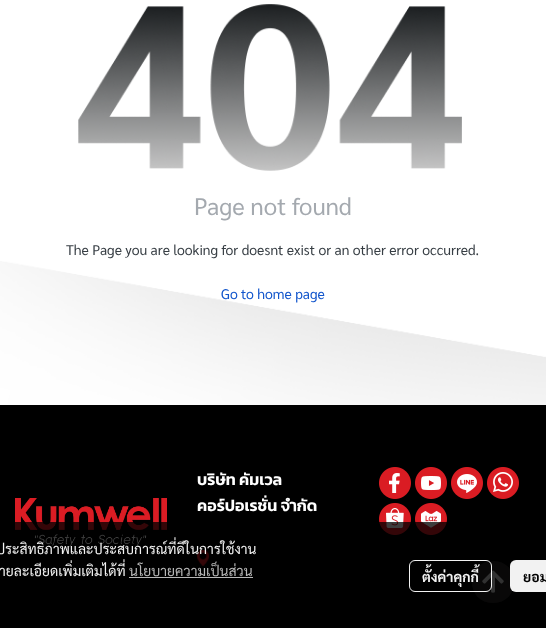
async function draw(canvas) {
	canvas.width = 546;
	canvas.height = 628;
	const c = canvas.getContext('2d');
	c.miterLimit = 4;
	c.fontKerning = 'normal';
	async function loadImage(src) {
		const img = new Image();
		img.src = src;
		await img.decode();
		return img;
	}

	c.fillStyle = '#fff';
	c.fillRect(0, 0, 546, 628);
	c.drawImage(await loadImage('img1.png'), 0, 261, 546, 144);
	c.drawImage(await loadImage('img2.png'), 78, 4, 384, 167);
	c.font = '24px Sarabun';
	c.fillStyle = '#a4a9af';
	c.fillText('Page not found', 194, 215);
	c.font = '14px Sarabun';
	c.fillStyle = '#373e44';
	c.fillText('The Page you are looking for doesnt exist or an other error occurred.', 66, 255);
	c.fillStyle = '#15c';
	c.fillText('Go to home page', 221, 299);
	c.fillStyle = '#000';
	c.fillRect(0, 405, 546, 223);
	c.fillStyle = '#1e1d1d';
	c.beginPath();
	c.moveTo(493, 561);
	c.bezierCurveTo(465, 561, 465, 603, 493, 603);
	c.bezierCurveTo(521, 603, 521, 561, 493, 561);
	c.closePath();
	c.fill();
	c.drawImage(await loadImage('img3.png'), 482, 570, 22, 23);
	c.font = '600 16px Kanit';
	c.fillStyle = '#fff';
	c.fillText('บริษัท คัมเวล', 197, 485);
	c.fillText('คอร์ปอเรชั่น จำกัด', 197, 511);
	c.drawImage(await loadImage('img4.png'), 197, 550, 12, 16);
	c.drawImage(await loadImage('img5.png'), 379, 467, 32, 32);
	c.drawImage(await loadImage('img6.png'), 415, 467, 32, 32);
	c.drawImage(await loadImage('img7.png'), 451, 467, 32, 32);
	c.drawImage(await loadImage('img8.png'), 487, 467, 32, 32);
	c.drawImage(await loadImage('img9.png'), 379, 503, 32, 32);
	c.drawImage(await loadImage('img10.png'), 415, 503, 32, 32);
	c.drawImage(await loadImage('img11.png'), 15, 498, 152, 49);
	c.fillStyle = '#2b2a2ab3';
	c.beginPath();
	c.moveTo(493, 561);
	c.bezierCurveTo(465, 561, 465, 603, 493, 603);
	c.bezierCurveTo(521, 603, 521, 561, 493, 561);
	c.closePath();
	c.fill();
	c.drawImage(await loadImage('img12.png'), 482, 570, 22, 23);
	c.fillStyle = '#000000c2';
	c.beginPath();
	c.roundRect(0, 522, 546, 98, 8);
	c.fill();
	c.font = '14px Sarabun';
	c.fillStyle = '#f2f2f2';
	c.fillText('ประสิทธิภาพและประสบการณ์ที่ดีในการใช้งาน', -4, 554);
	c.fillText('ายละเอียดเพิ่มเติมได้ที่', -1, 576);
	c.fillStyle = '#b8b8b8';
	c.fillText('นโยบายความเป็นส่วน', 129, 576);
	c.fillRect(129, 577, 124, 1);
	c.beginPath();
	c.roundRect(409.5, 560.5, 82, 31, 5.5);
	c.strokeStyle = '#fffffff2';
	c.stroke();
	c.font = 'bold 14px Sarabun';
	c.fillStyle = '#f2f2f2';
	c.fillText('ตั้งค่าคุกกี้', 422, 582);
	c.fillStyle = '#fffffff2';
	c.beginPath();
	c.roundRect(510, 560, 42, 32, 6);
	c.fill();
	c.fillStyle = '#000';
	c.fillText('ยอม', 523, 582);
}

draw(document.querySelector('canvas'));
